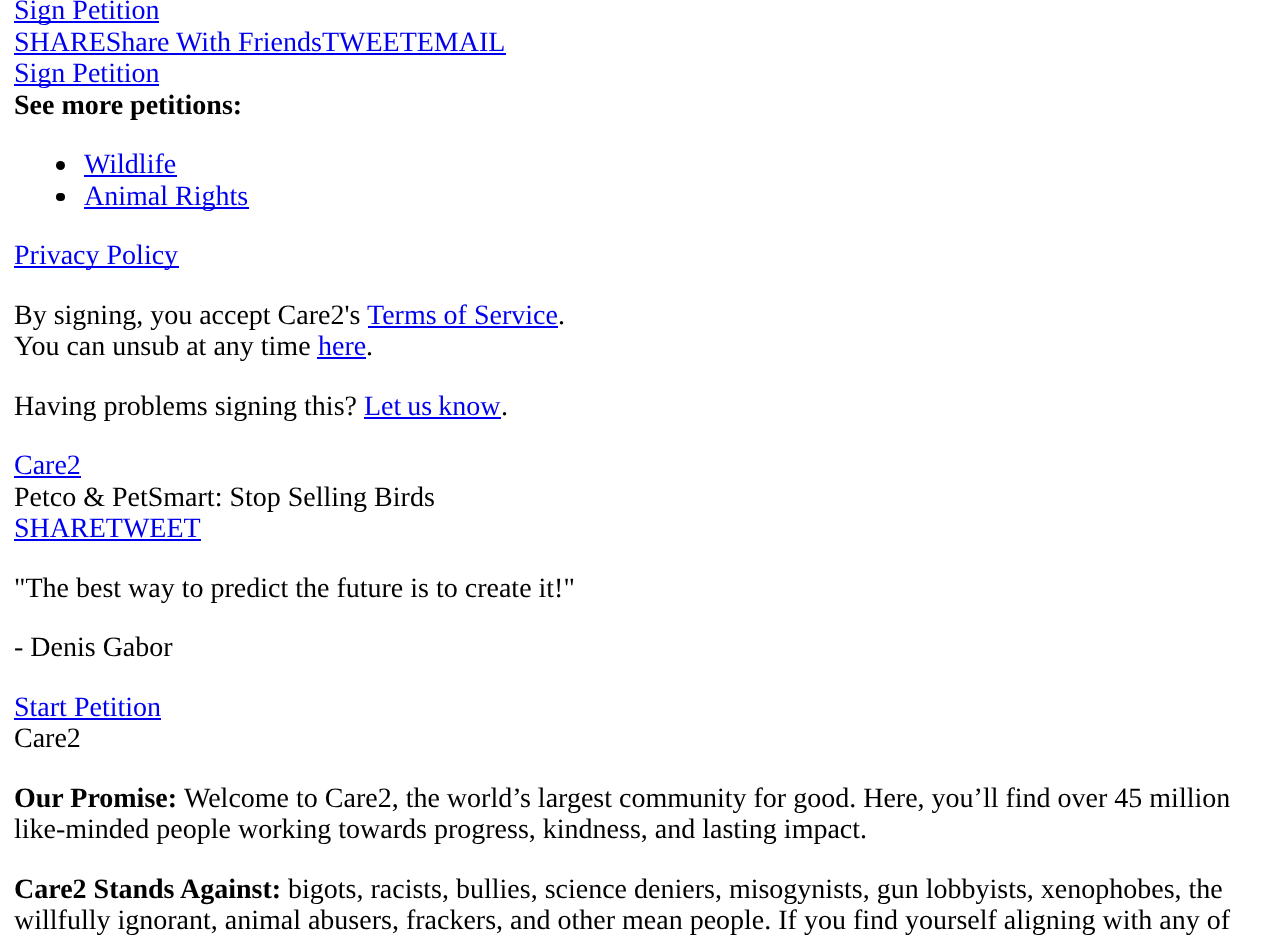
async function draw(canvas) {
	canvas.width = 1277;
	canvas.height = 950;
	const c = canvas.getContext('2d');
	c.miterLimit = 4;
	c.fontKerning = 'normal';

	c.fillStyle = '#fff';
	c.fillRect(0, 0, 1277, 950);
	c.fillStyle = '#00e';
	c.fillRect(14, 21, 145, 2);
	c.font = '28px Liberation Serif';
	c.fillText('Sign Petition', 14, 19);
	c.fillText('SHAREShare With FriendsTWEETEMAIL', 14, 51);
	c.fillRect(14, 53, 492, 2);
	c.fillRect(14, 84, 145, 2);
	c.fillText('Sign Petition', 14, 82);
	c.font = 'bold 28px Liberation Serif';
	c.fillStyle = '#000';
	c.fillText('See more petitions:', 14, 114);
	c.beginPath();
	c.arc(60.5, 165.5, 4.5, 0, 2 * Math.PI);
	c.fill();
	c.font = '28px Liberation Serif';
	c.fillStyle = '#00e';
	c.fillText('Wildlife', 84, 173);
	c.fillRect(84, 175, 93, 2);
	c.fillStyle = '#000';
	c.beginPath();
	c.roundRect(56, 193, 9, 8, 4);
	c.fill();
	c.fillStyle = '#00e';
	c.fillRect(84, 207, 165, 2);
	c.fillText('Animal Rights', 84, 205);
	c.fillRect(14, 266, 165, 2);
	c.fillText('Privacy Policy', 14, 264);
	c.fillStyle = '#000';
	c.fillText('By signing, you accept Care2\'s', 14, 324);
	c.fillStyle = '#00e';
	c.fillText('Terms of Service', 367, 324);
	c.fillRect(368, 326, 190, 2);
	c.fillStyle = '#000';
	c.fillText('.', 558, 324);
	c.fillText('You can unsub at any time', 14, 355);
	c.fillStyle = '#00e';
	c.fillText('here', 318, 355);
	c.fillRect(317, 357, 49, 2);
	c.fillStyle = '#000';
	c.fillText('.', 366, 355);
	c.fillText('Having problems signing this?', 14, 415);
	c.wordSpacing = '-1px';
	c.fillStyle = '#00e';
	c.fillText('Let us know', 364, 415);
	c.fillRect(364, 417, 137, 2);
	c.wordSpacing = '0px';
	c.fillStyle = '#000';
	c.fillText('.', 501, 415);
	c.fillStyle = '#00e';
	c.fillText('Care2', 14, 474);
	c.fillRect(14, 476, 67, 2);
	c.fillStyle = '#000';
	c.fillText('Petco & PetSmart: Stop Selling Birds', 14, 506);
	c.fillStyle = '#00e';
	c.fillText('SHARETWEET', 14, 537);
	c.fillRect(14, 539, 187, 2);
	c.fillStyle = '#000';
	c.fillText('"The best way to predict the future is to create it!"', 14, 597);
	c.fillText('- Denis Gabor', 14, 656);
	c.fillStyle = '#00e';
	c.fillText('Start Petition', 14, 716);
	c.fillRect(14, 718, 147, 2);
	c.fillStyle = '#000';
	c.fillText('Care2', 14, 747);
	c.font = 'bold 28px Liberation Serif';
	c.fillText('Our Promise:', 14, 807);
	c.font = '28px Liberation Serif';
	c.fillText('Welcome to Care2, the world’s largest community for good. Here, you’ll find over 45 million', 184, 807);
	c.fillText('like-minded people working towards progress, kindness, and lasting impact.', 14, 838);
	c.font = 'bold 28px Liberation Serif';
	c.fillText('Care2 Stands Against:', 14, 898);
	c.font = '28px Liberation Serif';
	c.fillText('bigots, racists, bullies, science deniers, misogynists, gun lobbyists, xenophobes, the', 288, 898);
	c.fillText('willfully ignorant, animal abusers, frackers, and other mean people. If you find yourself aligning with any of', 14, 929);
}

draw(document.querySelector('canvas'));
